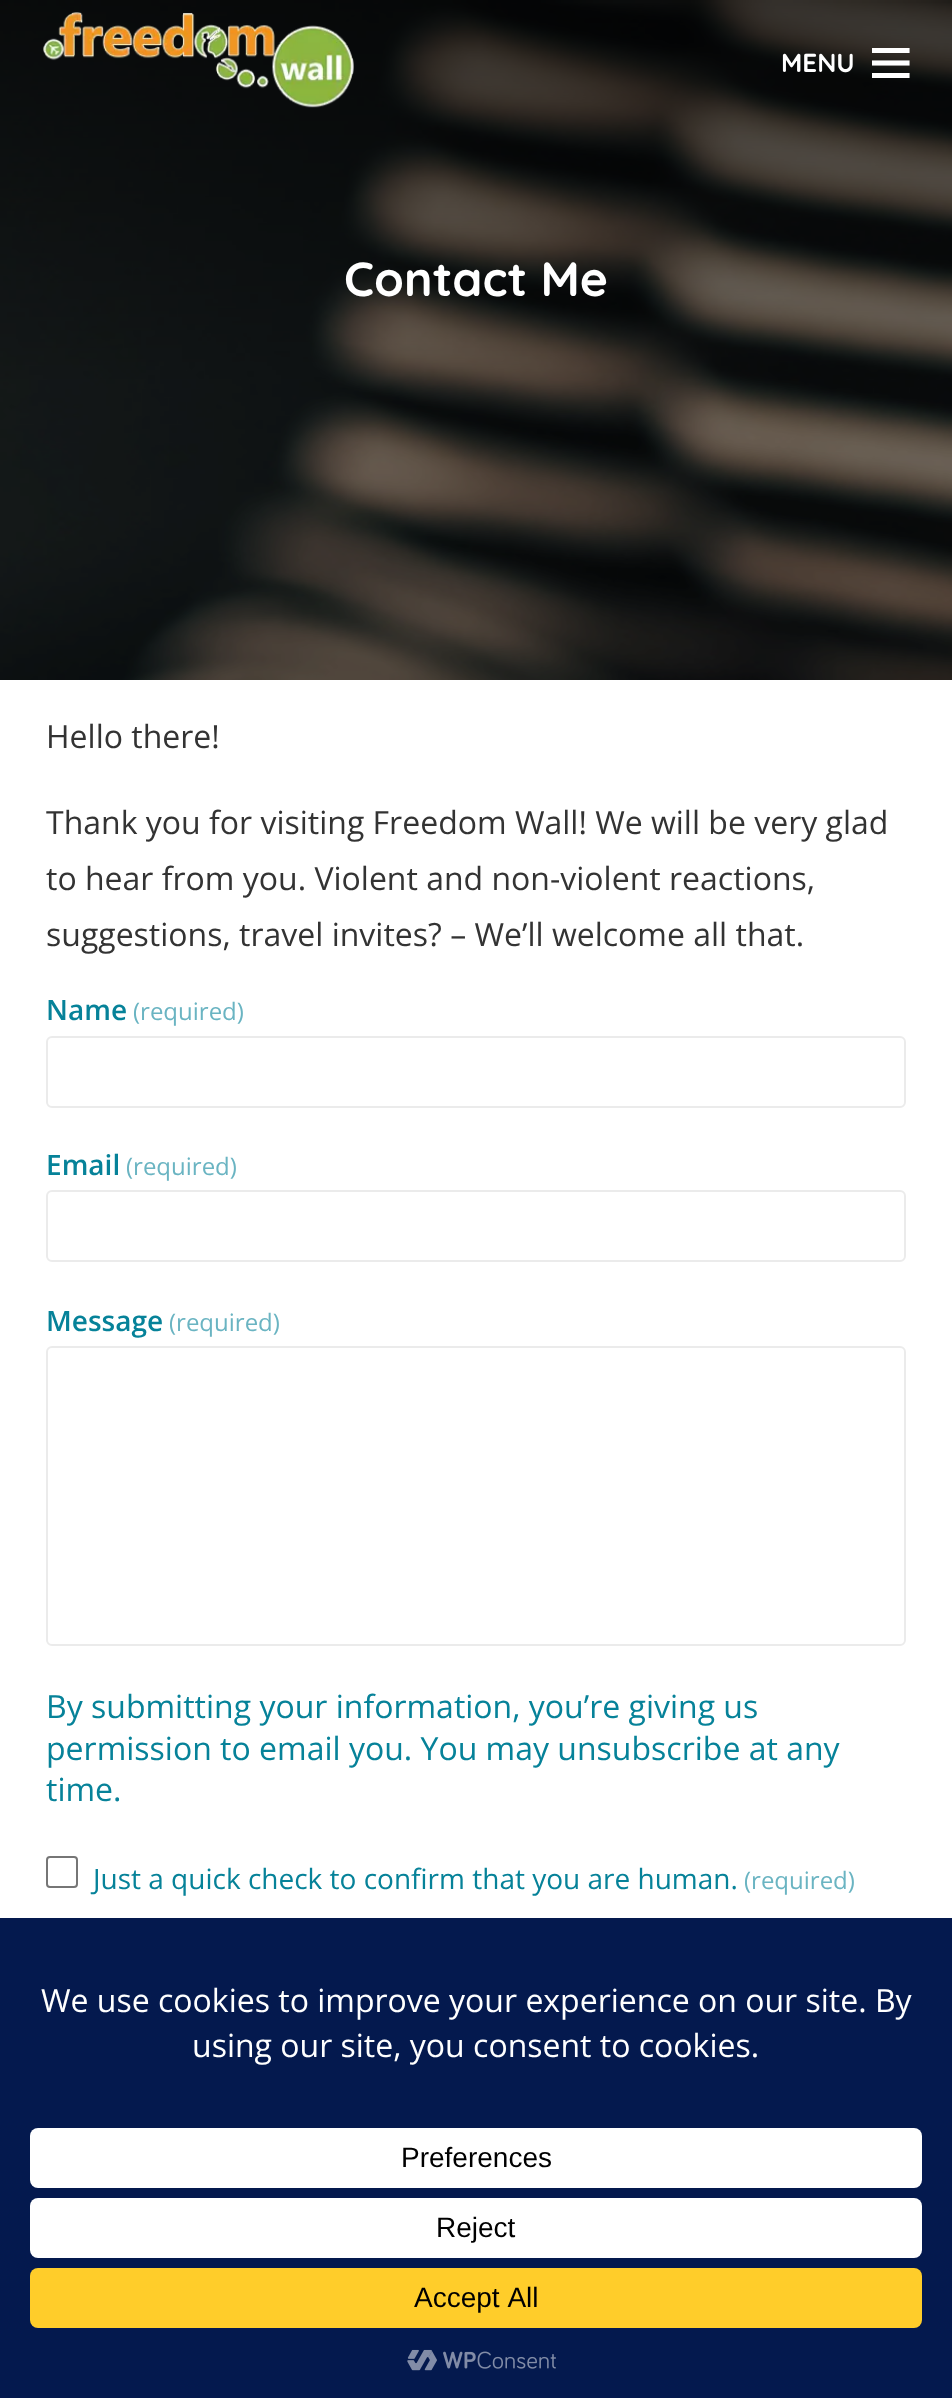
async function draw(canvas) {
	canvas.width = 952;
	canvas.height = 2398;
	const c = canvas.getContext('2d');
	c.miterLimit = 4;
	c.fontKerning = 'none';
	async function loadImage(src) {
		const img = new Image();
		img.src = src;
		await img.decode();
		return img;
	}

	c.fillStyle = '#fff';
	c.fillRect(0, 0, 952, 2398);
	c.drawImage(await loadImage('img2.png'), 0, 0, 952, 680);
	c.drawImage(await loadImage('img1.png'), 43, 12, 311, 96);
	c.font = 'bold 26px Quicksand';
	c.fillText('MENU', 781, 72);
	c.font = '40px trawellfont';
	c.fillText('𐦺', 872, 78);
	c.font = 'bold 48px Quicksand';
	c.fillText('Contact Me', 344, 296);
	c.font = '32px Open Sans';
	c.fillStyle = '#333';
	for (const [text, x, y] of [
		['Hello there!', 46, 748],
		['Thank you for visiting Freedom Wall! We will be very glad', 46, 834],
		['to hear from you. Violent and non-violent reactions,', 46, 890],
		['suggestions, travel invites? – We’ll welcome all that.', 46, 946],
	]) {
		c.fillText(text, x, y);
	}
	c.font = '600 28px Open Sans';
	c.fillStyle = '#068299';
	c.fillText('Name', 46, 1020);
	c.font = '24px Open Sans';
	c.fillStyle = '#6ab4c2';
	c.fillText('(required)', 133, 1020);
	c.beginPath();
	c.roundRect(47, 1037, 858, 70, 5);
	c.strokeStyle = '#ebebeb';
	c.lineWidth = 2;
	c.stroke();
	c.font = '600 28px Open Sans';
	c.fillStyle = '#068299';
	c.fillText('Email', 46, 1175);
	c.font = '24px Open Sans';
	c.fillStyle = '#6ab4c2';
	c.fillText('(required)', 126, 1175);
	c.beginPath();
	c.roundRect(47, 1191, 858, 70, 5);
	c.stroke();
	c.font = '600 28px Open Sans';
	c.fillStyle = '#068299';
	c.fillText('Message', 46, 1331);
	c.font = '24px Open Sans';
	c.fillStyle = '#6ab4c2';
	c.fillText('(required)', 169, 1331);
	c.beginPath();
	c.roundRect(47, 1347, 858, 298, 5);
	c.stroke();
	c.font = '32px Open Sans';
	c.fillStyle = '#068299';
	for (const [text, x, y] of [
		['By submitting your information, you’re giving us', 46, 1718],
		['permission to email you. You may unsubscribe at any', 46, 1760],
		['time.', 46, 1801],
	]) {
		c.fillText(text, x, y);
	}
	c.beginPath();
	c.roundRect(47, 1857, 30, 30, 3);
	c.strokeStyle = '#767676';
	c.stroke();
	c.font = '28px Open Sans';
	c.fillText('Just a quick check to confirm that you are human.', 93, 1889);
	c.font = '24px Open Sans';
	c.fillStyle = '#6ab4c2';
	c.fillText('(required)', 744, 1889);
	c.fillStyle = '#04194e';
	c.fillRect(0, 1918, 952, 480);
	c.font = '32px Open Sans';
	c.fillStyle = '#fff';
	c.fillText('We use cookies to improve your experience on our site. By', 41, 2012);
	c.fillText('using our site, you consent to cookies.', 192, 2057);
	c.beginPath();
	c.roundRect(30, 2128, 892, 60, 8);
	c.fill();
	c.font = '28px Liberation Sans';
	c.fillStyle = '#000';
	c.fillText('Preferences', 401, 2167);
	c.fillStyle = '#fff';
	c.beginPath();
	c.roundRect(30, 2198, 892, 60, 8);
	c.fill();
	c.fillStyle = '#000';
	c.fillText('Reject', 436, 2237);
	c.fillStyle = '#ffcd2a';
	c.beginPath();
	c.roundRect(30, 2268, 892, 60, 8);
	c.fill();
	c.fillStyle = '#000';
	c.fillText('Accept All', 414, 2307);
	c.drawImage(await loadImage('img3.png'), 407, 2349, 149, 22);
}

draw(document.querySelector('canvas'));
